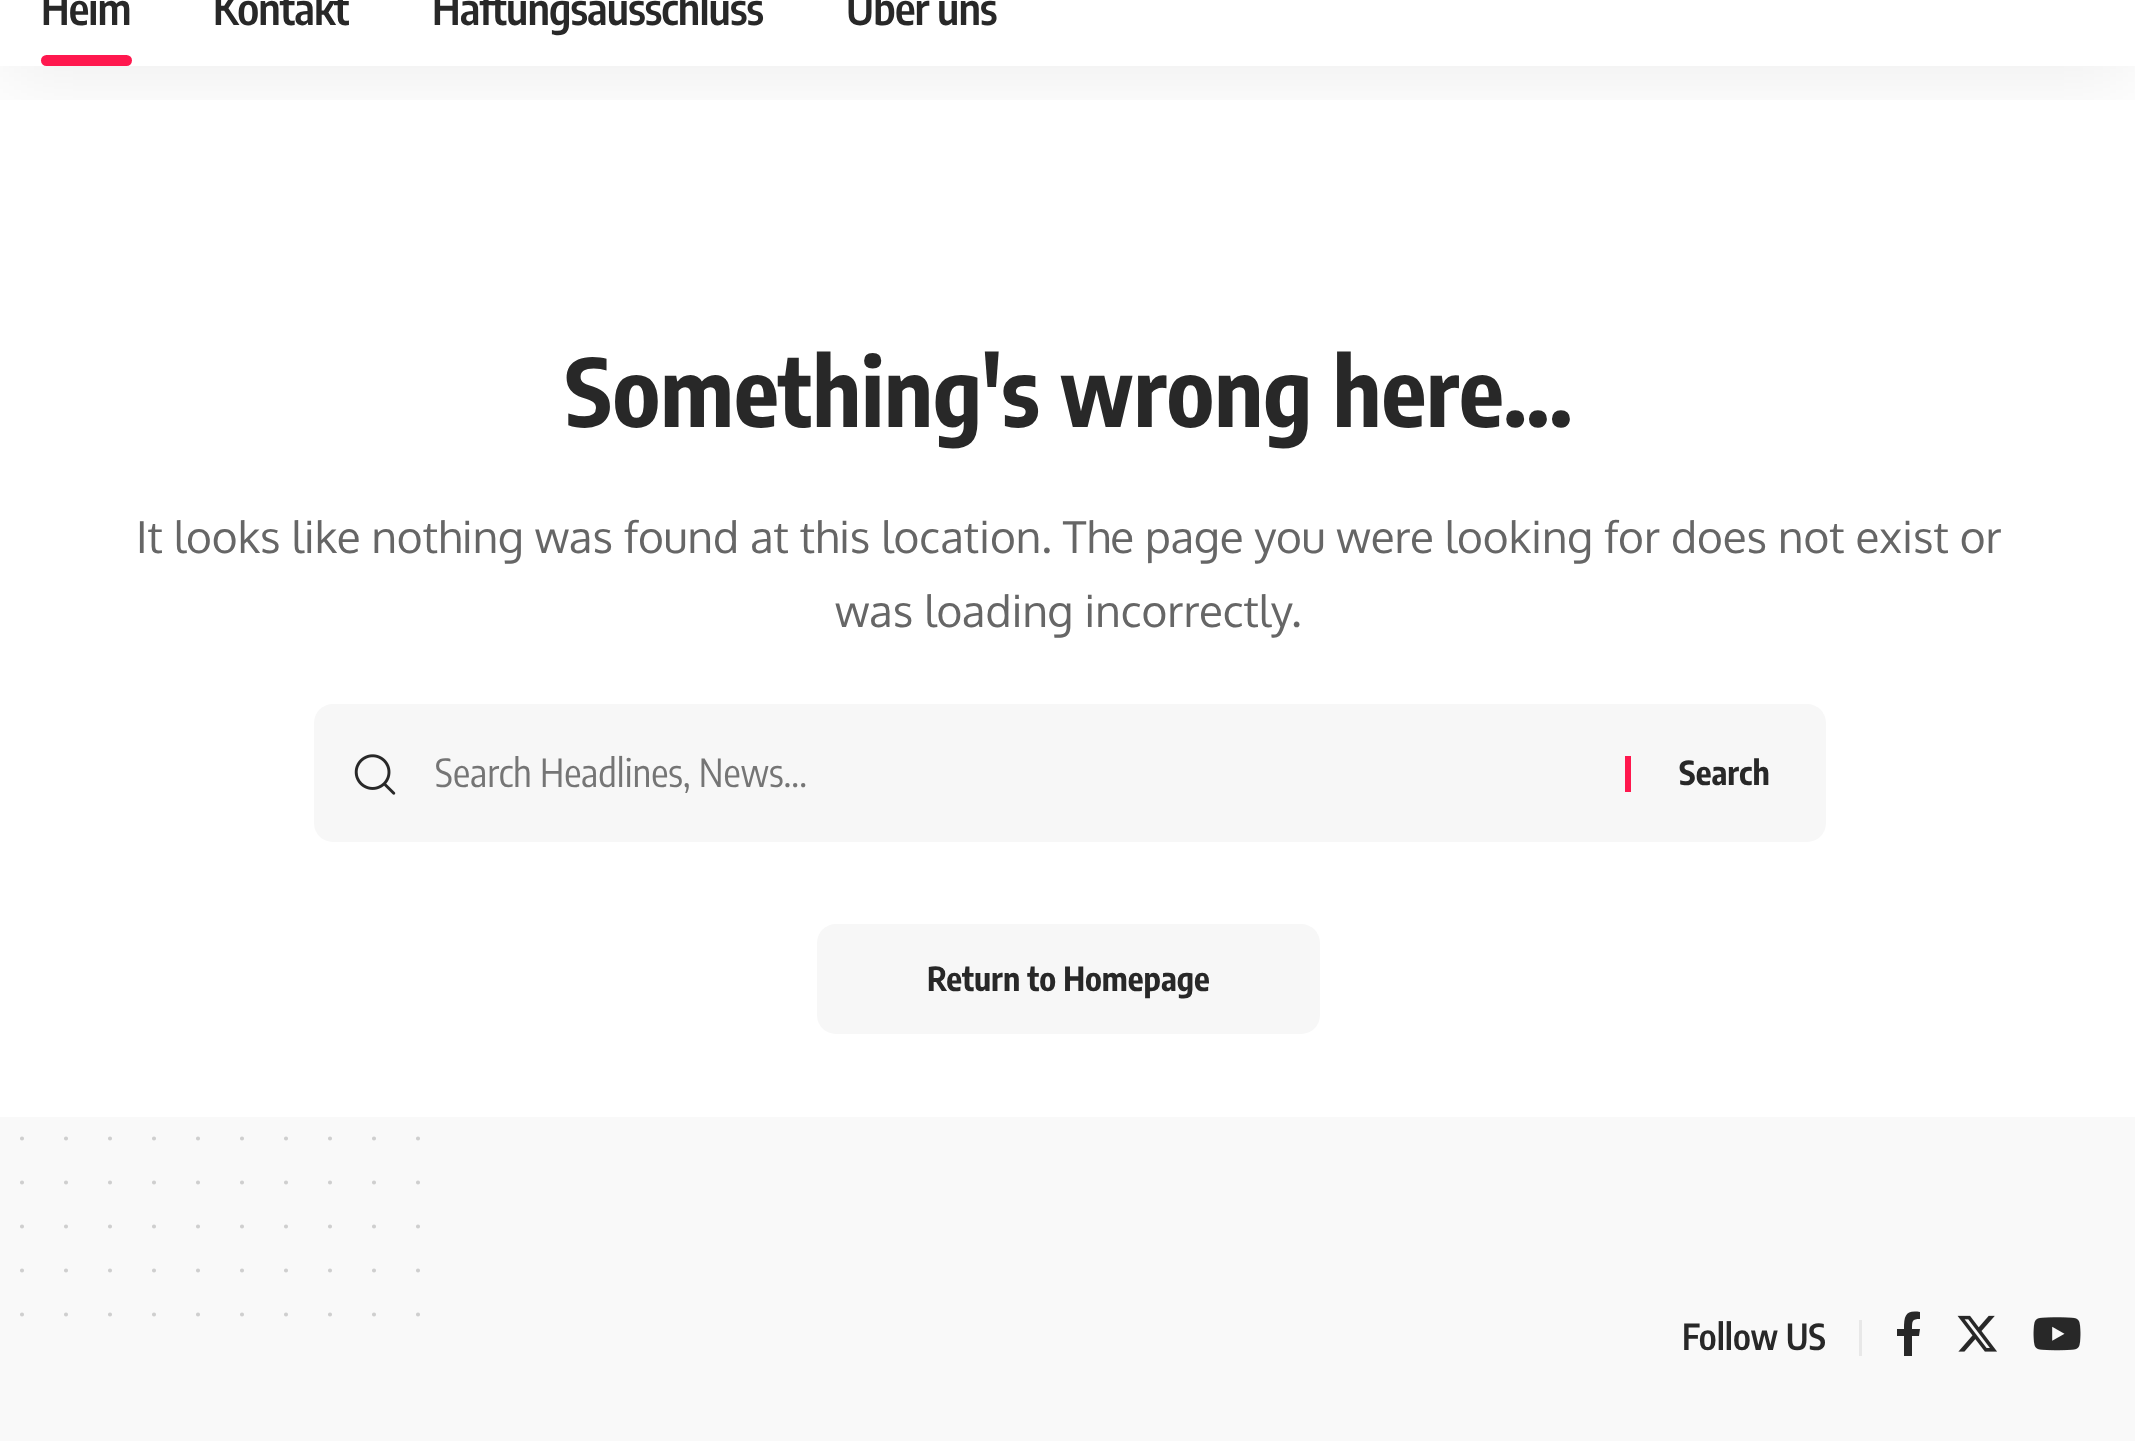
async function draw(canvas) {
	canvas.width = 2135;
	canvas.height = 1441;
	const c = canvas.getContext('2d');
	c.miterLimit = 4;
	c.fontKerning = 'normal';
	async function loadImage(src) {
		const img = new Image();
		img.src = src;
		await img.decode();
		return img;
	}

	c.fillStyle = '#fff';
	c.fillRect(0, 0, 2135, 1441);
	c.save();
	c.beginPath();
	c.rect(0, 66, 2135, 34);
	c.clip();
	c.fillStyle = '#00000012';
	c.filter = 'blur(41px)';
	c.beginPath();
	c.rect(0, -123, 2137, 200);
	c.fill();
	c.filter = 'none';
	c.restore();
	c.letterSpacing = '-0.9px';
	c.font = '600 44px Encode Sans Condensed';
	c.fillStyle = '#282828';
	c.fillText('Heim', 41, 25);
	c.fillStyle = '#ff184e';
	c.beginPath();
	c.roundRect(41, 55, 91, 11, 5.5);
	c.fill();
	c.fillStyle = '#282828';
	for (const [text, x, y] of [
		['Kontakt', 213, 25],
		['Haftungsausschluss', 432, 25],
		['Über uns', 846, 25],
	]) {
		c.fillText(text, x, y);
	}
	c.letterSpacing = '0px';
	c.font = 'bold 93.5px Encode Sans Condensed';
	c.fillText('Something\'s wrong here...', 565, 427);
	c.font = '44px Oxygen';
	c.fillStyle = '#666';
	c.fillText('It looks like nothing was found at this location. The page you were looking for does not exist or', 136, 553);
	c.fillText('was loading incorrectly.', 835, 627);
	c.fillStyle = '#f7f7f7';
	c.beginPath();
	c.roundRect(314, 704, 1512, 138, 19);
	c.fill();
	c.drawImage(await loadImage('img1.png'), 354, 754, 42, 41);
	c.font = '38.5px Encode Sans Condensed';
	c.fillStyle = '#757575';
	c.fillText('Search Headlines, News...', 435, 787);
	c.fillStyle = '#ff184e';
	c.fillRect(1625, 756, 6, 36);
	c.font = 'bold 33px Encode Sans Condensed';
	c.fillStyle = '#282828';
	c.fillText('Search', 1679, 785);
	c.fillStyle = '#f7f7f7';
	c.beginPath();
	c.roundRect(817, 924, 503, 110, 19);
	c.fill();
	c.fillStyle = '#282828';
	c.fillText('Return to Homepage', 927, 991);
	c.fillStyle = '#f9f9f9';
	c.fillRect(0, 1117, 2135, 324);
	c.beginPath();
	c.moveTo(22, 1138.5);
	c.lineTo(418.5, 1138.5);
	c.strokeStyle = '#cfcfcf';
	c.lineWidth = 4.1;
	c.lineCap = 'round';
	c.setLineDash([0, 44]);
	c.stroke();
	c.beginPath();
	c.moveTo(22, 1182.5);
	c.lineTo(418.5, 1182.5);
	c.stroke();
	c.beginPath();
	c.moveTo(22, 1226.5);
	c.lineTo(418.5, 1226.5);
	c.stroke();
	c.beginPath();
	c.moveTo(22, 1270.5);
	c.lineTo(418.5, 1270.5);
	c.stroke();
	c.beginPath();
	c.moveTo(22, 1314.5);
	c.lineTo(418.5, 1314.5);
	c.stroke();
	c.fillStyle = '#e8e8e8';
	c.fillRect(1859, 1320, 3, 36);
	c.font = '600 35.75px Encode Sans Condensed';
	c.fillStyle = '#282828';
	c.fillText('Follow US', 1682, 1350);
	c.beginPath();
	c.moveTo(1919, 1336);
	c.lineTo(1920, 1329);
	c.lineTo(1912, 1329);
	c.bezierCurveTo(1912, 1321, 1912, 1319, 1920, 1319);
	c.lineTo(1920, 1312);
	c.bezierCurveTo(1906, 1310, 1904, 1315, 1904, 1329);
	c.lineTo(1897, 1329);
	c.lineTo(1897, 1336);
	c.lineTo(1904, 1336);
	c.lineTo(1904, 1356);
	c.lineTo(1912, 1356);
	c.lineTo(1912, 1336);
	c.closePath();
	c.fill();
	c.drawImage(await loadImage('img2.png'), 1957, 1315, 40, 37);
	c.drawImage(await loadImage('img3.png'), 2033, 1317, 48, 34);
}

draw(document.querySelector('canvas'));
